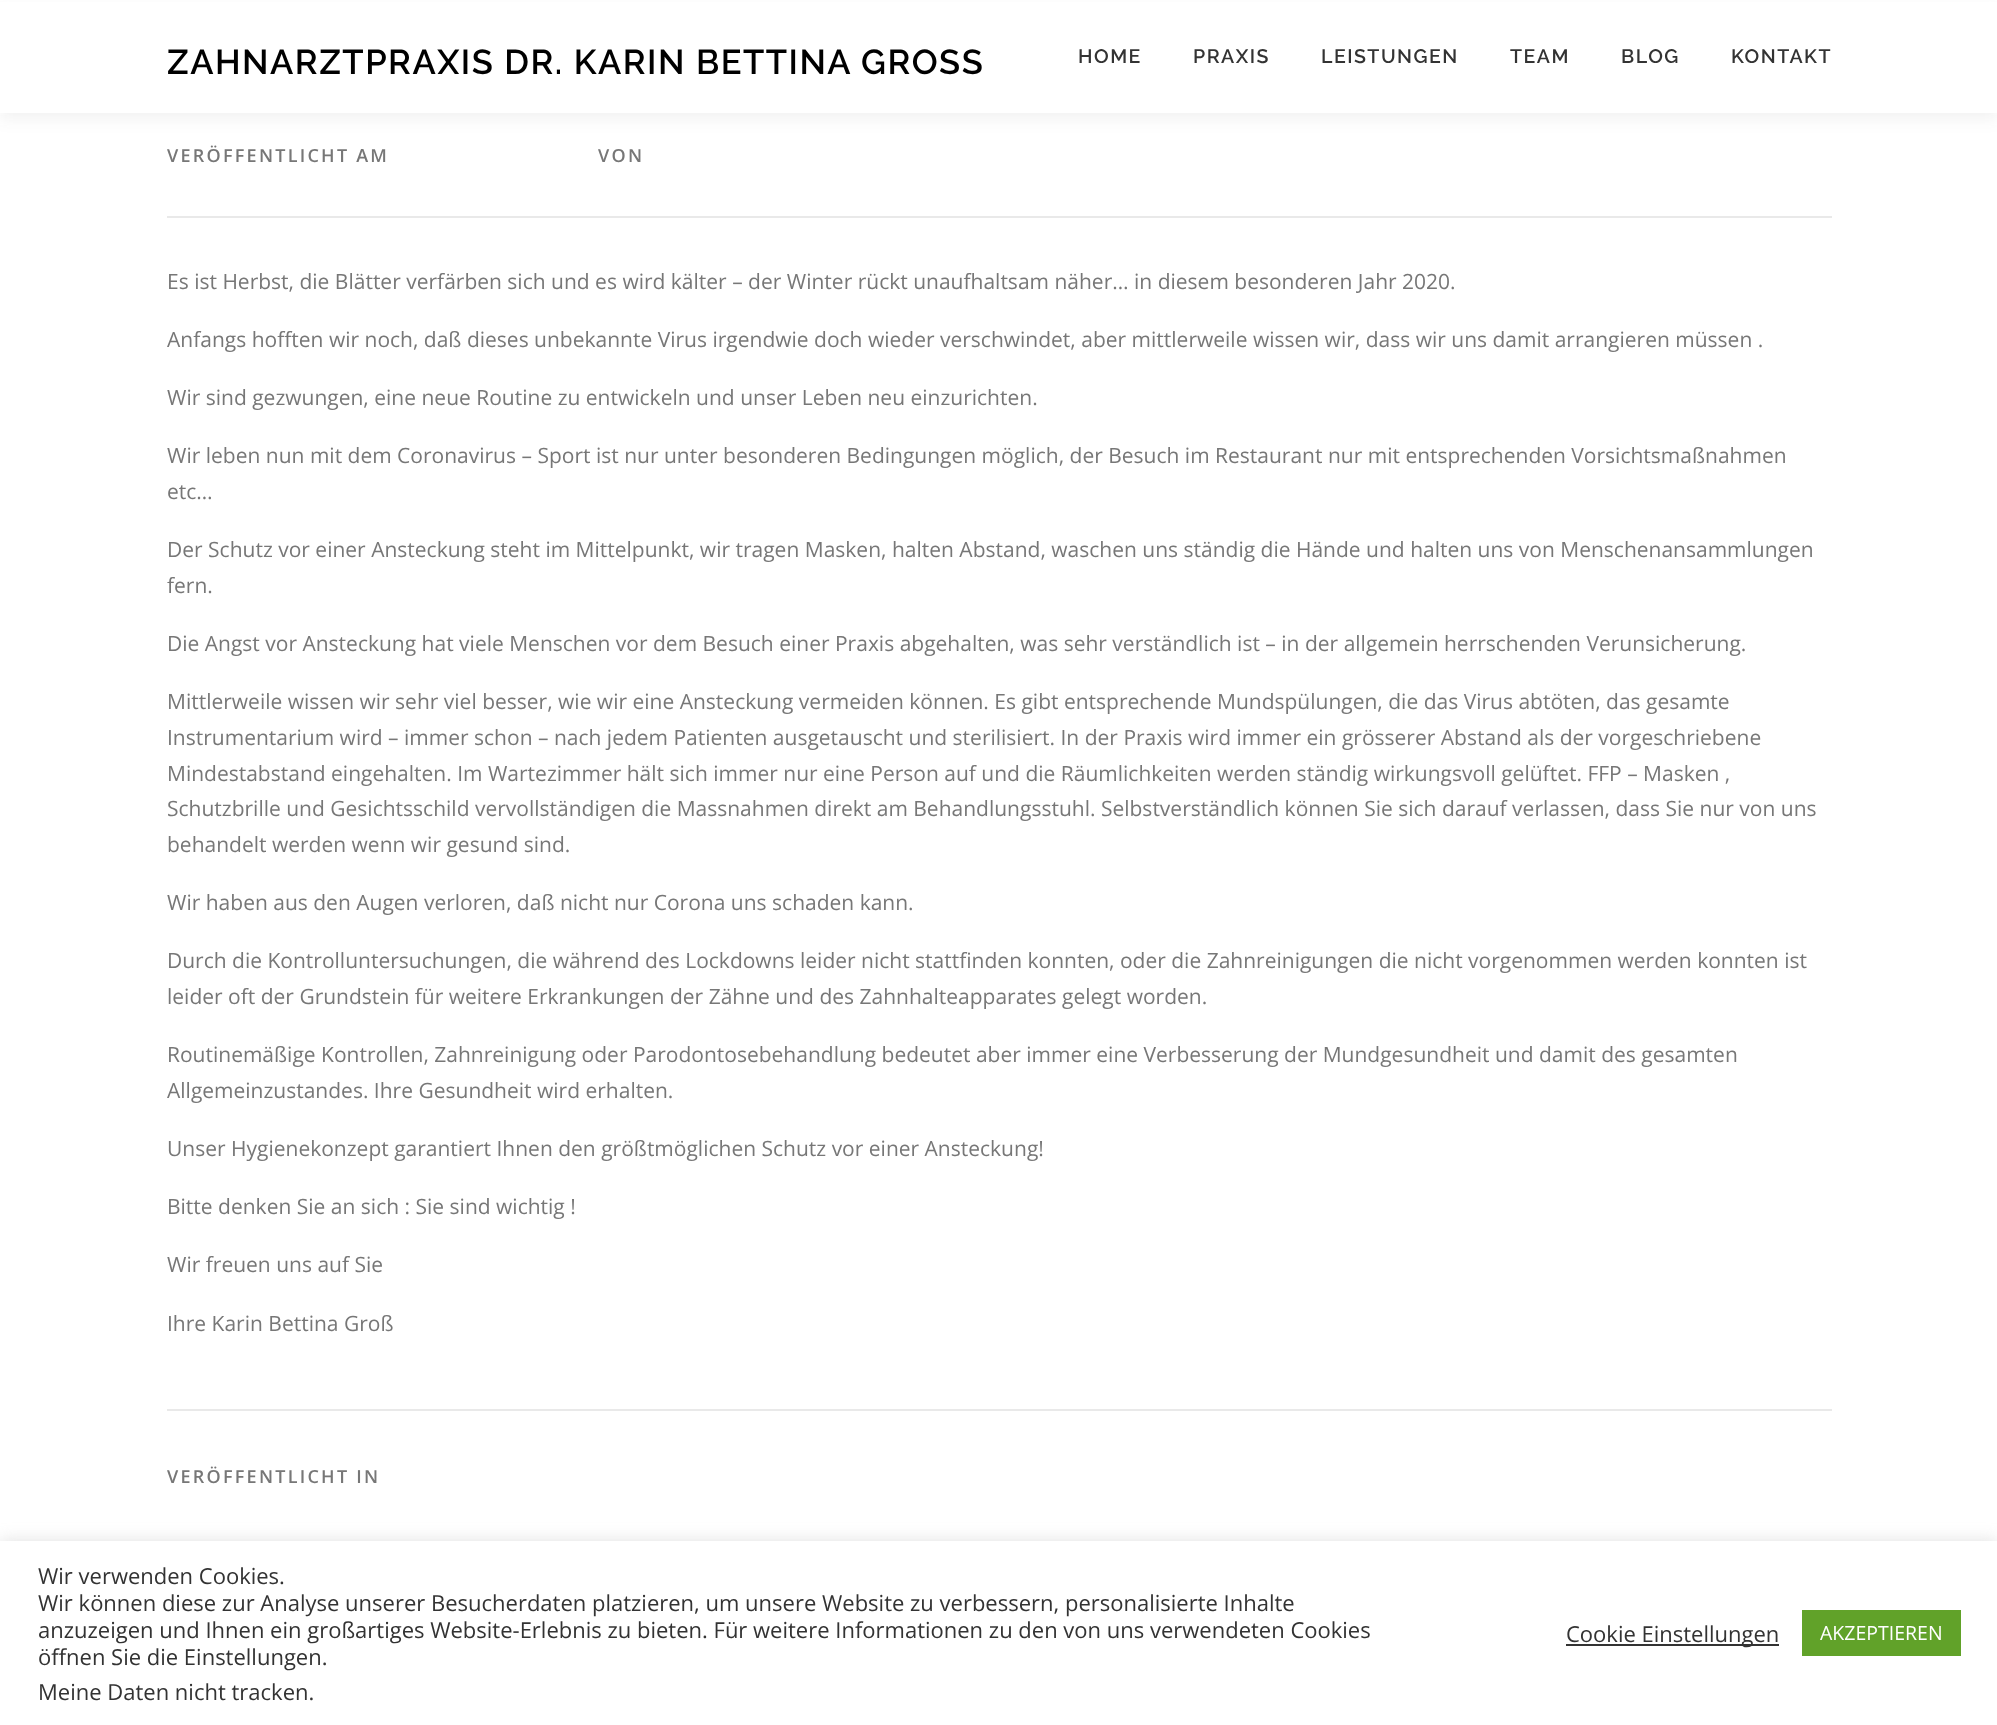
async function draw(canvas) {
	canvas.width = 1997;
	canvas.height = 1725;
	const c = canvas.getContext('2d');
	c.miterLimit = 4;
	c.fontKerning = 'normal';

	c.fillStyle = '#fff';
	c.fillRect(0, 0, 1997, 1725);
	c.fillStyle = '#3232320f';
	c.filter = 'blur(7.5px)';
	c.beginPath();
	c.rect(0, 8, 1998, 112);
	c.fill();
	c.filter = 'none';
	c.fillStyle = '#fff';
	c.fillRect(0, 2, 1997, 111);
	c.letterSpacing = '1.5px';
	c.font = '600 34.5px Raleway';
	c.fillStyle = '#000';
	c.fillText('ZAHNARZTPRAXIS DR. KARIN BETTINA GROSS', 167, 74);
	c.font = '600 19.5px Raleway';
	c.fillStyle = '#333';
	for (const [text, x, y] of [
		['HOME', 1078, 63],
		['PRAXIS', 1193, 63],
		['LEISTUNGEN', 1321, 63],
		['TEAM', 1510, 63],
		['BLOG', 1621, 63],
		['KONTAKT', 1731, 63],
	]) {
		c.fillText(text, x, y);
	}
	c.fillStyle = '#e9e9e9';
	c.fillRect(167, 216, 1665, 2);
	c.letterSpacing = '2.25px';
	c.font = '600 18px Open Sans';
	c.fillStyle = '#777';
	c.fillText('VERÖFFENTLICHT AM', 167, 162);
	c.fillText('VON', 598, 162);
	c.letterSpacing = '0px';
	c.font = '21px Open Sans';
	for (const [text, x, y] of [
		['Es ist Herbst, die Blätter verfärben sich und es wird kälter – der Winter rückt unaufhaltsam näher… in diesem besonderen Jahr 2020.', 167, 289],
		['Anfangs hofften wir noch, daß dieses unbekannte Virus irgendwie doch wieder verschwindet, aber mittlerweile wissen wir, dass wir uns damit arrangieren müssen .', 167, 347],
		['Wir sind gezwungen, eine neue Routine zu entwickeln und unser Leben neu einzurichten.', 167, 405],
		['Wir leben nun mit dem Coronavirus – Sport ist nur unter besonderen Bedingungen möglich, der Besuch im Restaurant nur mit entsprechenden Vorsichtsmaßnahmen', 167, 463],
		['etc…', 167, 499],
		['Der Schutz vor einer Ansteckung steht im Mittelpunkt, wir tragen Masken, halten Abstand, waschen uns ständig die Hände und halten uns von Menschenansammlungen', 167, 557],
		['fern.', 167, 593],
		['Die Angst vor Ansteckung hat viele Menschen vor dem Besuch einer Praxis abgehalten, was sehr verständlich ist – in der allgemein herrschenden Verunsicherung.', 167, 651],
		['Mittlerweile wissen wir sehr viel besser, wie wir eine Ansteckung vermeiden können. Es gibt entsprechende Mundspülungen, die das Virus abtöten, das gesamte', 167, 709],
		['Instrumentarium wird – immer schon – nach jedem Patienten ausgetauscht und sterilisiert. In der Praxis wird immer ein grösserer Abstand als der vorgeschriebene', 167, 745],
		['Mindestabstand eingehalten. Im Wartezimmer hält sich immer nur eine Person auf und die Räumlichkeiten werden ständig wirkungsvoll gelüftet. FFP – Masken ,', 167, 781],
		['Schutzbrille und Gesichtsschild vervollständigen die Massnahmen direkt am Behandlungsstuhl. Selbstverständlich können Sie sich darauf verlassen, dass Sie nur von uns', 167, 816],
		['behandelt werden wenn wir gesund sind.', 167, 852],
		['Wir haben aus den Augen verloren, daß nicht nur Corona uns schaden kann.', 167, 910],
		['Durch die Kontrolluntersuchungen, die während des Lockdowns leider nicht stattfinden konnten, oder die Zahnreinigungen die nicht vorgenommen werden konnten ist', 167, 968],
		['leider oft der Grundstein für weitere Erkrankungen der Zähne und des Zahnhalteapparates gelegt worden.', 167, 1004],
		['Routinemäßige Kontrollen, Zahnreinigung oder Parodontosebehandlung bedeutet aber immer eine Verbesserung der Mundgesundheit und damit des gesamten', 167, 1062],
		['Allgemeinzustandes. Ihre Gesundheit wird erhalten.', 167, 1098],
		['Unser Hygienekonzept garantiert Ihnen den größtmöglichen Schutz vor einer Ansteckung!', 167, 1156],
		['Bitte denken Sie an sich : Sie sind wichtig !', 167, 1214],
		['Wir freuen uns auf Sie', 167, 1272],
		['Ihre Karin Bettina Groß', 167, 1331],
	]) {
		c.fillText(text, x, y);
	}
	c.fillStyle = '#e9e9e9';
	c.fillRect(167, 1409, 1665, 2);
	c.letterSpacing = '2.25px';
	c.font = '600 18px Open Sans';
	c.fillStyle = '#777';
	c.fillText('VERÖFFENTLICHT IN', 167, 1483);
	c.fillStyle = '#acabab4d';
	c.filter = 'blur(7.5px)';
	c.beginPath();
	c.rect(0, 1539, 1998, 185);
	c.fill();
	c.filter = 'none';
	c.fillStyle = '#fff';
	c.fillRect(0, 1541, 1997, 184);
	c.letterSpacing = '0px';
	c.font = '22px Open Sans';
	c.fillStyle = '#333';
	for (const [text, x, y] of [
		['Wir verwenden Cookies.', 38, 1584],
		['Wir können diese zur Analyse unserer Besucherdaten platzieren, um unsere Website zu verbessern, personalisierte Inhalte', 38, 1611],
		['anzuzeigen und Ihnen ein großartiges Website-Erlebnis zu bieten. Für weitere Informationen zu den von uns verwendeten Cookies', 38, 1638],
		['öffnen Sie die Einstellungen.', 38, 1665],
		['Meine Daten nicht tracken.', 38, 1700],
	]) {
		c.fillText(text, x, y);
	}
	c.fillRect(1566, 1644, 213, 2);
	c.fillText('Cookie Einstellungen', 1566, 1642);
	c.fillStyle = '#61a229';
	c.fillRect(1802, 1610, 159, 46);
	c.font = '19.5px Open Sans';
	c.fillStyle = '#fff';
	c.fillText('AKZEPTIEREN', 1820, 1640);
}

draw(document.querySelector('canvas'));
